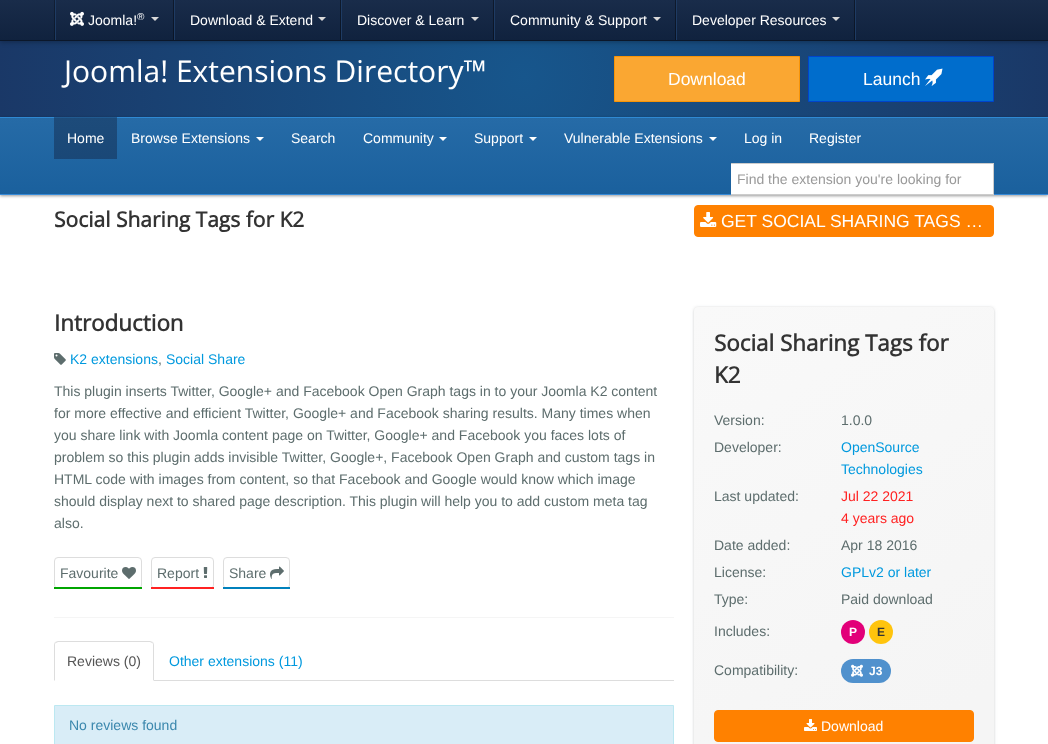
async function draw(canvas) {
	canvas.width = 1048;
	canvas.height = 744;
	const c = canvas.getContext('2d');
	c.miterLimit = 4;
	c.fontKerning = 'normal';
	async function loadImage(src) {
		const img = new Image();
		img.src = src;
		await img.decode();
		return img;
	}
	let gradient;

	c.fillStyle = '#fff';
	c.fillRect(0, 0, 1048, 744);
	gradient = c.createRadialGradient(524, 77, 0, 524, 77, 526);
	gradient.addColorStop(0, '#17568c');
	gradient.addColorStop(1, '#1a3867');
	c.fillStyle = gradient;
	c.fillRect(0, 41, 1048, 76);
	c.fillStyle = '#0000004d';
	c.filter = 'blur(2.5px)';
	c.beginPath();
	c.rect(0, 1, 1048, 41);
	c.fill();
	c.filter = 'none';
	gradient = c.createLinearGradient(524, 0, 524, 40);
	gradient.addColorStop(0, '#192c4a');
	gradient.addColorStop(1, '#10223e');
	c.fillStyle = gradient;
	c.fillRect(0, 0, 1048, 40);
	gradient = c.createLinearGradient(524, 0, 524, 40);
	gradient.addColorStop(0, '#0f1a2c');
	gradient.addColorStop(1, '#0a1425');
	c.fillStyle = gradient;
	c.fillRect(854, 0, 1, 40);
	c.fillRect(675, 0, 1, 40);
	c.fillRect(493, 0, 1, 40);
	c.fillRect(340, 0, 1, 40);
	gradient = c.createLinearGradient(524, 0, 524, 40);
	gradient.addColorStop(0, '#121f34');
	gradient.addColorStop(1, '#0b182b');
	c.fillStyle = gradient;
	c.fillRect(54, 0, 1, 40);
	gradient = c.createLinearGradient(524, 0, 524, 40);
	gradient.addColorStop(0, '#0f1a2c');
	gradient.addColorStop(1, '#0a1425');
	c.fillStyle = gradient;
	c.fillRect(173, 0, 1, 40);
	for (const [x, y, w, h, color] of [
		[0, 40, 1048, 1, '#0b172a'],
		[55, 0, 1, 40, '#1e3b63'],
		[174, 0, 1, 40, '#1e3b63'],
	]) {
		c.fillStyle = color;
		c.fillRect(x, y, w, h);
	}
	c.drawImage(await loadImage('img1.png'), 70, 11, 14, 15);
	c.font = '14px Liberation Sans';
	c.fillStyle = '#fff';
	c.fillText('Joomla!', 88, 25);
	c.font = '10px Liberation Sans';
	c.fillText('®', 137, 20);
	c.fillStyle = '#d9d9d9';
	c.beginPath();
	c.moveTo(151, 17);
	c.lineTo(159, 17);
	c.lineTo(155, 21);
	c.closePath();
	c.fill();
	c.fillStyle = '#1e3b63';
	c.fillRect(341, 0, 1, 40);
	c.font = '14px Liberation Sans';
	c.fillStyle = '#fff';
	c.fillText('Download & Extend', 190, 25);
	c.fillStyle = '#d9d9d9';
	c.beginPath();
	c.moveTo(318, 17);
	c.lineTo(326, 17);
	c.lineTo(322, 21);
	c.closePath();
	c.fill();
	c.fillStyle = '#1e3b63';
	c.fillRect(494, 0, 1, 40);
	c.fillStyle = '#fff';
	c.fillText('Discover & Learn', 357, 25);
	c.fillStyle = '#d9d9d9';
	c.beginPath();
	c.moveTo(471, 17);
	c.lineTo(479, 17);
	c.lineTo(475, 21);
	c.closePath();
	c.fill();
	c.fillStyle = '#1e3b63';
	c.fillRect(676, 0, 1, 40);
	c.fillStyle = '#fff';
	c.fillText('Community & Support', 510, 25);
	c.fillStyle = '#d9d9d9';
	c.beginPath();
	c.moveTo(653, 17);
	c.lineTo(661, 17);
	c.lineTo(657, 21);
	c.closePath();
	c.fill();
	c.fillStyle = '#1e3b63';
	c.fillRect(855, 0, 1, 40);
	c.fillStyle = '#fff';
	c.fillText('Developer Resources', 692, 25);
	c.fillStyle = '#d9d9d9';
	c.beginPath();
	c.moveTo(832, 17);
	c.lineTo(840, 17);
	c.lineTo(836, 21);
	c.closePath();
	c.fill();
	c.font = '30px Open Sans';
	c.fillStyle = '#fff';
	c.fillText('Joomla! Extensions Directory™', 64, 82);
	c.fillStyle = '#faa732';
	c.beginPath();
	c.rect(614.5, 56.5, 185, 45);
	c.fill();
	c.strokeStyle = '#f89406';
	c.stroke();
	c.font = '17.5px Liberation Sans';
	c.fillStyle = '#fff';
	c.fillText('Download', 668, 85);
	c.fillStyle = '#006dcc';
	c.beginPath();
	c.rect(808.5, 56.5, 185, 45);
	c.fill();
	c.strokeStyle = '#04c';
	c.stroke();
	c.fillStyle = '#fff';
	c.fillText('Launch', 863, 85);
	c.drawImage(await loadImage('img2.png'), 925, 68, 18, 18);
	c.fillStyle = '#00000033';
	c.filter = 'blur(0.5px)';
	c.beginPath();
	c.rect(0, 117, 1048, 78);
	c.fill();
	c.filter = 'none';
	c.fillStyle = '#00000066';
	c.filter = 'blur(1.5px)';
	c.beginPath();
	c.rect(0, 118, 1048, 78);
	c.fill();
	c.filter = 'none';
	gradient = c.createLinearGradient(524, 195, 524, 117);
	gradient.addColorStop(0, '#1a609d');
	gradient.addColorStop(1, '#266ba7');
	c.fillStyle = gradient;
	c.fillRect(0, 118, 1048, 76);
	gradient = c.createLinearGradient(524, 195, 524, 117);
	gradient.addColorStop(0, '#174575');
	gradient.addColorStop(1, '#1d4b7a');
	c.fillStyle = gradient;
	c.fillRect(54, 118, 63, 41);
	for (const [x, y, w, h, color] of [
		[0, 194, 1048, 1, '#368ad8'],
		[0, 117, 1048, 1, '#2f89d3'],
		[54, 117, 63, 1, '#215a90'],
	]) {
		c.fillStyle = color;
		c.fillRect(x, y, w, h);
	}
	c.font = '14px Liberation Sans';
	c.fillStyle = '#fff';
	c.fillText('Home', 67, 143);
	c.fillText('Browse Extensions', 131, 143);
	c.beginPath();
	c.moveTo(256, 137);
	c.lineTo(264, 137);
	c.lineTo(260, 141);
	c.closePath();
	c.fill();
	c.fillText('Search', 291, 143);
	c.fillText('Community', 363, 143);
	c.beginPath();
	c.moveTo(439, 137);
	c.lineTo(447, 137);
	c.lineTo(443, 141);
	c.closePath();
	c.fill();
	c.fillText('Support', 474, 143);
	c.beginPath();
	c.moveTo(529, 137);
	c.lineTo(537, 137);
	c.lineTo(533, 141);
	c.closePath();
	c.fill();
	c.fillText('Vulnerable Extensions', 564, 143);
	c.beginPath();
	c.moveTo(709, 137);
	c.lineTo(717, 137);
	c.lineTo(713, 141);
	c.closePath();
	c.fill();
	c.fillText('Log in', 744, 143);
	c.fillText('Register', 809, 143);
	for (const [x, y, w, h, color] of [
		[731, 164, 262, 30, '#fff'],
		[731, 163, 263, 1, '#ccc'],
		[993, 163, 1, 32, '#ccc'],
		[731, 194, 263, 1, '#ccc'],
	]) {
		c.fillStyle = color;
		c.fillRect(x, y, w, h);
	}
	c.fillStyle = '#999';
	c.fillText('Find the extension you\'re looking for', 737, 184);
	c.font = 'bold 21px Open Sans';
	c.fillStyle = '#333';
	c.fillText('Social Sharing Tags for K2', 54, 227);
	c.fillStyle = '#ff8100';
	c.beginPath();
	c.roundRect(694.5, 205.5, 299, 31, 3.5);
	c.fill();
	c.strokeStyle = '#ff8100';
	c.stroke();
	c.drawImage(await loadImage('img3.png'), 700, 212, 17, 15);
	c.font = '17.5px Liberation Sans';
	c.fillStyle = '#fff';
	c.fillText('GET SOCIAL SHARING TAGS …', 721, 227);
	c.font = 'bold 22.4px Open Sans';
	c.fillStyle = '#333';
	c.fillText('Introduction', 54, 331);
	c.drawImage(await loadImage('img4.png'), 54, 353, 12, 12);
	c.font = '14px Liberation Sans';
	c.fillStyle = '#0099de';
	c.fillText('K2 extensions', 70, 364);
	c.fillStyle = '#5d6d6d';
	c.fillText(',', 158, 364);
	c.fillStyle = '#0099de';
	c.fillText('Social Share', 166, 364);
	c.fillStyle = '#5d6d6d';
	for (const [text, x, y] of [
		['This plugin inserts Twitter, Google+ and Facebook Open Graph tags in to your Joomla K2 content', 54, 396],
		['for more effective and efficient Twitter, Google+ and Facebook sharing results. Many times when', 54, 418],
		['you share link with Joomla content page on Twitter, Google+ and Facebook you faces lots of', 54, 440],
		['problem so this plugin adds invisible Twitter, Google+, Facebook Open Graph and custom tags in', 54, 462],
		['HTML code with images from content, so that Facebook and Google would know which image', 54, 484],
		['should display next to shared page description. This plugin will help you to add custom meta tag', 54, 506],
		['also.', 54, 528],
	]) {
		c.fillText(text, x, y);
	}
	c.beginPath();
	c.roundRect(54.5, 557.5, 87, 31, 3.5);
	c.strokeStyle = '#ddd';
	c.stroke();
	c.fillText('Favourite', 60, 578);
	c.drawImage(await loadImage('img5.png'), 122, 567, 14, 12);
	c.fillStyle = '#00a500';
	c.fillRect(54, 587, 88, 2);
	c.beginPath();
	c.roundRect(151.5, 557.5, 62, 31, 3.5);
	c.stroke();
	c.fillStyle = '#5d6d6d';
	c.fillText('Report', 157, 578);
	c.drawImage(await loadImage('img6.png'), 203, 567, 5, 11);
	c.fillStyle = '#ff2121';
	c.fillRect(151, 587, 63, 2);
	c.beginPath();
	c.roundRect(223.5, 557.5, 66, 31, 3.5);
	c.stroke();
	c.fillStyle = '#5d6d6d';
	c.fillText('Share', 229, 578);
	c.drawImage(await loadImage('img7.png'), 270, 566, 14, 13);
	for (const [x, y, w, h, color] of [
		[223, 587, 67, 2, '#0081bc'],
		[54, 617, 620, 1, '#f5f5f5'],
		[154, 680, 520, 1, '#ddd'],
	]) {
		c.fillStyle = color;
		c.fillRect(x, y, w, h);
	}
	c.beginPath();
	c.moveTo(58, 641);
	c.lineTo(55, 642);
	c.lineTo(56, 643);
	c.lineTo(58, 642);
	c.lineTo(150, 642);
	c.lineTo(152, 643);
	c.lineTo(153, 642);
	c.lineTo(150, 641);
	c.closePath();
	c.fill();
	c.beginPath();
	c.moveTo(154, 681);
	c.lineTo(154, 645);
	c.bezierCurveTo(154, 644, 153.5, 643, 153, 642);
	c.lineTo(152, 643);
	c.bezierCurveTo(153, 643, 153, 644, 153, 645);
	c.lineTo(153, 680);
	c.closePath();
	c.fill();
	c.beginPath();
	c.moveTo(54, 681);
	c.lineTo(55, 680);
	c.lineTo(55, 645);
	c.bezierCurveTo(55, 644, 55, 643, 56, 643);
	c.lineTo(55, 642);
	c.bezierCurveTo(54.5, 643, 54, 644, 54, 645);
	c.closePath();
	c.fill();
	c.fillStyle = '#555';
	c.fillText('Reviews (0)', 67, 666);
	c.fillStyle = '#0099de';
	c.fillText('Other extensions (11)', 169, 666);
	c.fillStyle = '#d9edf7';
	c.beginPath();
	c.rect(54.5, 705.5, 619, 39);
	c.fill();
	c.strokeStyle = '#bce8f1';
	c.stroke();
	c.fillStyle = '#3a87ad';
	c.fillText('No reviews found', 69, 730);
	c.fillStyle = '#343a4314';
	c.filter = 'blur(2px)';
	c.beginPath();
	c.roundRect(694, 308, 300, 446, 4);
	c.fill();
	c.filter = 'none';
	c.filter = 'blur(1px)';
	c.beginPath();
	c.roundRect(694, 308, 300, 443, 4);
	c.fill();
	c.filter = 'none';
	c.fillStyle = '#343a431a';
	c.filter = 'blur(1px)';
	c.beginPath();
	c.roundRect(694, 307, 300, 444, 4);
	c.fill();
	c.filter = 'none';
	gradient = c.createLinearGradient(667, 325, 1021, 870);
	gradient.addColorStop(0, '#f9f9f9');
	gradient.addColorStop(0.74, '#f5f5f5');
	c.fillStyle = gradient;
	c.beginPath();
	c.roundRect(694, 307, 300, 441, 4);
	c.fill();
	c.font = 'bold 22.4px Open Sans';
	c.fillStyle = '#333';
	c.fillText('Social Sharing Tags for', 714, 351);
	c.fillText('K2', 714, 383);
	c.font = '14px Liberation Sans';
	c.fillStyle = '#5d6d6d';
	for (const [text, x, y] of [
		['Version:', 714, 425],
		['1.0.0', 841, 425],
		['Developer:', 714, 452],
	]) {
		c.fillText(text, x, y);
	}
	c.fillStyle = '#0099de';
	c.fillText('OpenSource', 841, 452);
	c.fillText('Technologies', 841, 474);
	c.fillStyle = '#5d6d6d';
	c.fillText('Last updated:', 714, 501);
	c.fillStyle = '#ff2121';
	c.fillText('Jul 22 2021', 841, 501);
	c.fillText('4 years ago', 841, 523);
	c.fillStyle = '#5d6d6d';
	for (const [text, x, y] of [
		['Date added:', 714, 550],
		['Apr 18 2016', 841, 550],
		['License:', 714, 577],
	]) {
		c.fillText(text, x, y);
	}
	c.fillStyle = '#0099de';
	c.fillText('GPLv2 or later', 841, 577);
	c.fillStyle = '#5d6d6d';
	for (const [text, x, y] of [
		['Type:', 714, 604],
		['Paid download', 841, 604],
		['Includes:', 714, 636],
	]) {
		c.fillText(text, x, y);
	}
	c.fillStyle = '#e20079';
	c.beginPath();
	c.arc(853, 632, 12, 0, 2 * Math.PI);
	c.fill();
	c.font = 'bold 12px Liberation Sans';
	c.fillStyle = '#fff';
	c.fillText('P', 849, 636);
	c.fillStyle = '#ffc40d';
	c.beginPath();
	c.arc(881, 632, 12, 0, 2 * Math.PI);
	c.fill();
	c.fillStyle = '#333';
	c.fillText('E', 877, 636);
	c.font = '14px Liberation Sans';
	c.fillStyle = '#5d6d6d';
	c.fillText('Compatibility:', 714, 675);
	c.fillStyle = '#5091cd';
	c.beginPath();
	c.roundRect(841, 659, 50, 24, 12);
	c.fill();
	c.drawImage(await loadImage('img8.png'), 851, 664, 12, 13);
	c.font = 'bold 12px Liberation Sans';
	c.fillStyle = '#fff';
	c.fillText('J3', 869, 675);
	c.fillStyle = '#ff8100';
	c.beginPath();
	c.roundRect(714.5, 710.5, 259, 31, 3.5);
	c.fill();
	c.strokeStyle = '#ff8100';
	c.stroke();
	c.drawImage(await loadImage('img9.png'), 804, 719, 13, 12);
	c.font = '14px Liberation Sans';
	c.fillStyle = '#fff';
	c.fillText('Download', 821, 731);
}

draw(document.querySelector('canvas'));
